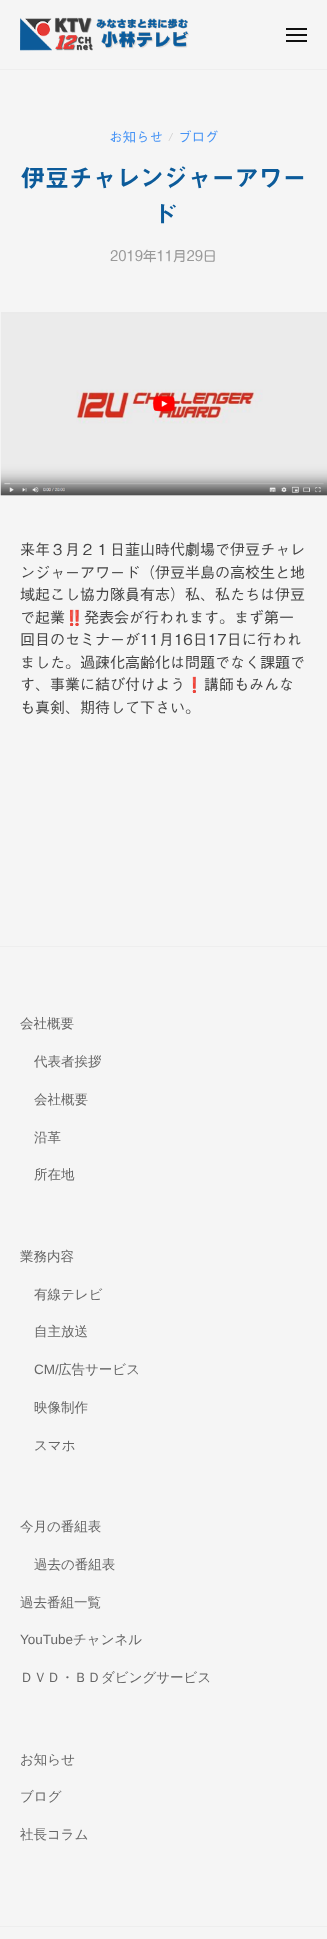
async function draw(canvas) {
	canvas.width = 327;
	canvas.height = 1939;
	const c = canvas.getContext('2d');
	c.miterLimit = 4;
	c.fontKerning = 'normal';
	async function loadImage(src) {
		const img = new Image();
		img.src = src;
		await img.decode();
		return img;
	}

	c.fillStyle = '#f5f5f5';
	c.fillRect(0, 0, 327, 1939);
	c.fillStyle = '#eee';
	c.fillRect(0, 69, 327, 1);
	c.drawImage(await loadImage('img1.png'), 20, 17, 169, 34);
	for (const [x, y, w, h, color] of [
		[286, 34, 21, 2, '#111'],
		[286, 28, 21, 2, '#111'],
		[286, 40, 21, 2, '#111'],
	]) {
		c.fillStyle = color;
		c.fillRect(x, y, w, h);
	}
	c.font = '13.5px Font';
	c.fillStyle = '#4693f5';
	c.fillText('お知らせ', 109, 142);
	c.font = '11px Font';
	c.fillStyle = '#ccc';
	c.fillText('/', 168, 141);
	c.font = '13.5px Font';
	c.fillStyle = '#4693f5';
	c.fillText('ブログ', 178, 142);
	c.letterSpacing = '-0.75px';
	c.font = '600 24.5px Font';
	c.fillStyle = '#0c5b9a';
	c.fillText('伊豆チャレンジャーアワー', 21, 187);
	c.fillText('ド', 152, 223);
	c.letterSpacing = '0px';
	c.font = '13.5px "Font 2"';
	c.fillStyle = '#999';
	c.fillText('2019年11月29日', 110, 261);
	c.drawImage(await loadImage('img2.png'), 0, 312, 327, 184);
	c.font = '15px Font';
	c.fillStyle = '#444';
	for (const [text, x, y] of [
		['来年３月２１日韮山時代劇場で伊豆チャレ', 20, 555],
		['ンジャーアワード（伊豆半島の高校生と地', 20, 578],
		['域起こし協力隊員有志）私、私たちは伊豆', 20, 600],
		['で起業', 20, 623],
	]) {
		c.fillText(text, x, y);
	}
	c.font = '15px Noto Color Emoji';
	c.fillText('‼️', 65, 623);
	c.font = '15px Font';
	for (const [text, x, y] of [
		['発表会が行われます。まず第一', 84, 623],
		['回目のセミナーが11月16日17日に行われ', 20, 645],
		['ました。過疎化高齢化は問題でなく課題で', 20, 668],
		['す、事業に結び付けよう', 20, 690],
	]) {
		c.fillText(text, x, y);
	}
	c.font = '15px Noto Color Emoji';
	c.fillText('❗', 185, 690);
	c.font = '15px Font';
	c.fillText('講師もみんな', 204, 690);
	c.fillText('も真剣、期待して下さい。', 20, 713);
	c.fillStyle = '#eee';
	c.fillRect(0, 946, 327, 1);
	c.font = '500 13.5px WenQuanYi Zen Hei';
	c.fillStyle = '#666';
	for (const [text, x, y] of [
		['会社概要', 20, 1028],
		['代表者挨拶', 34, 1066],
		['会社概要', 34, 1104],
		['沿革', 34, 1142],
		['所在地', 34, 1179],
		['業務内容', 20, 1261],
		['有線テレビ', 34, 1299],
		['自主放送', 34, 1336],
	]) {
		c.fillText(text, x, y);
	}
	c.font = '13.5px Liberation Sans';
	c.fillText('CM/', 34, 1374);
	c.font = '500 13.5px WenQuanYi Zen Hei';
	for (const [text, x, y] of [
		['広告サービス', 58, 1374],
		['映像制作', 34, 1412],
		['スマホ', 34, 1450],
		['今月の番組表', 20, 1531],
		['過去の番組表', 34, 1569],
		['過去番組一覧', 20, 1607],
	]) {
		c.fillText(text, x, y);
	}
	c.font = '13.5px Liberation Sans';
	c.fillText('YouTube', 20, 1644);
	c.font = '500 13.5px WenQuanYi Zen Hei';
	for (const [text, x, y] of [
		['チャンネル', 73, 1644],
		['ＤＶＤ・ＢＤダビングサービス', 20, 1682],
		['お知らせ', 20, 1764],
		['ブログ', 20, 1801],
		['社長コラム', 20, 1839],
	]) {
		c.fillText(text, x, y);
	}
	c.fillStyle = '#eee';
	c.fillRect(0, 1926, 327, 1);
}

draw(document.querySelector('canvas'));
